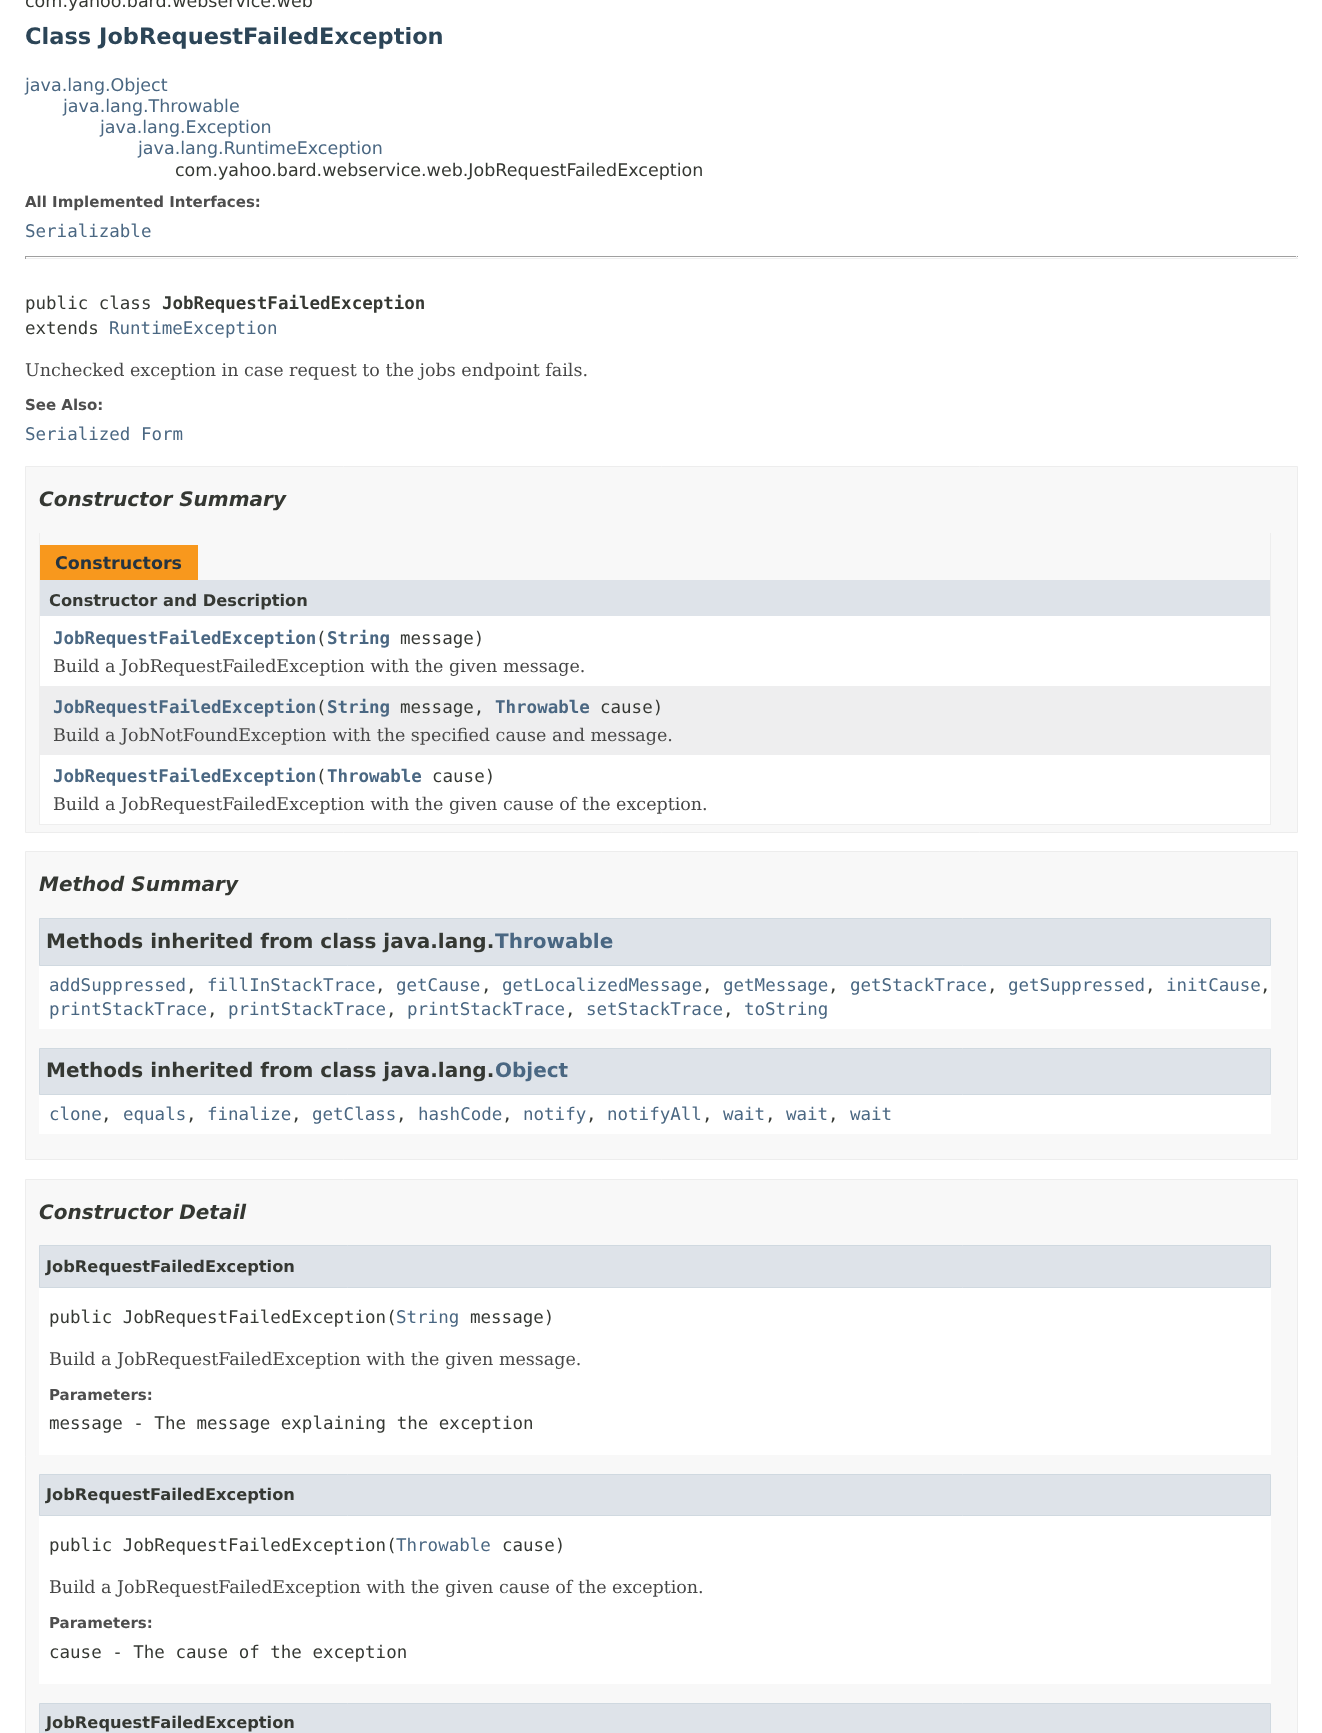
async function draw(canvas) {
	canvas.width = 1322;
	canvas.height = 1733;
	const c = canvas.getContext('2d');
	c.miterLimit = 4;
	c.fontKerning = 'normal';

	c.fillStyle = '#fff';
	c.fillRect(0, 0, 1322, 1733);
	c.font = '17.5px DejaVu Sans';
	c.fillStyle = '#353833';
	c.fillText('com.yahoo.bard.webservice.web', 25, 7);
	c.font = 'bold 22.5px DejaVu Sans';
	c.fillStyle = '#2c4557';
	c.fillText('Class JobRequestFailedException', 25, 44);
	c.font = '17.5px DejaVu Sans';
	c.fillStyle = '#4a6782';
	for (const [text, x, y] of [
		['java.lang.Object', 25, 91],
		['java.lang.Throwable', 63, 112],
		['java.lang.Exception', 100, 133],
		['java.lang.RuntimeException', 138, 154],
	]) {
		c.fillText(text, x, y);
	}
	c.fillStyle = '#353833';
	c.fillText('com.yahoo.bard.webservice.web.JobRequestFailedException', 175, 176);
	c.font = 'bold 15px DejaVu Sans';
	c.fillStyle = '#4e4e4e';
	c.fillText('All Implemented Interfaces:', 25, 207);
	c.font = '17.5px DejaVu Sans Mono';
	c.fillStyle = '#4a6782';
	c.fillText('Serializable', 25, 237);
	for (const [x, y, w, h, color] of [
		[25, 256, 1273, 1, '#9f9f9f'],
		[1296, 256, 1, 3, '#eee'],
		[25, 258, 1273, 1, '#eee'],
		[25, 256, 1, 3, '#9f9f9f'],
	]) {
		c.fillStyle = color;
		c.fillRect(x, y, w, h);
	}
	c.fillStyle = '#353833';
	c.fillText('public class', 25, 309);
	c.font = 'bold 17.5px DejaVu Sans Mono';
	c.fillText('JobRequestFailedException', 162, 309);
	c.font = '17.5px DejaVu Sans Mono';
	c.fillText('extends', 25, 334);
	c.fillStyle = '#4a6782';
	c.fillText('RuntimeException', 109, 334);
	c.font = '17.5px DejaVu Serif';
	c.fillStyle = '#474747';
	c.fillText('Unchecked exception in case request to the jobs endpoint fails.', 25, 376);
	c.font = 'bold 15px DejaVu Sans';
	c.fillStyle = '#4e4e4e';
	c.fillText('See Also:', 25, 410);
	c.font = '17.5px DejaVu Sans Mono';
	c.fillStyle = '#4a6782';
	c.fillText('Serialized Form', 25, 440);
	c.fillStyle = '#f8f8f8';
	c.beginPath();
	c.rect(25.5, 466.5, 1272, 366);
	c.fill();
	c.strokeStyle = '#ededed';
	c.stroke();
	c.font = 'italic bold 20px DejaVu Sans';
	c.fillStyle = '#353833';
	c.fillText('Constructor Summary', 39, 506);
	for (const [x, y, w, h, color] of [
		[1270, 533, 1, 292, '#eee'],
		[39, 824, 1232, 1, '#eee'],
		[39, 533, 1, 292, '#eee'],
		[40, 545, 158, 35, '#f8981d'],
	]) {
		c.fillStyle = color;
		c.fillRect(x, y, w, h);
	}
	c.font = 'bold 17.5px DejaVu Sans';
	c.fillStyle = '#253441';
	c.fillText('Constructors', 55, 569);
	c.fillStyle = '#dee3e9';
	c.fillRect(40, 580, 1230, 36);
	c.font = 'bold 16.25px DejaVu Sans';
	c.fillStyle = '#353833';
	c.fillText('Constructor and Description', 49, 606);
	c.fillStyle = '#fff';
	c.fillRect(40, 616, 1230, 70);
	c.font = 'bold 17.5px DejaVu Sans Mono';
	c.fillStyle = '#4a6782';
	c.fillText('JobRequestFailedException String', 53, 644);
	c.font = '17.5px DejaVu Sans Mono';
	c.fillStyle = '#353833';
	c.fillText('(', 316, 644);
	c.fillText('message)', 400, 644);
	c.font = '17.5px DejaVu Serif';
	c.fillStyle = '#474747';
	c.fillText('Build a JobRequestFailedException with the given message.', 53, 672);
	c.fillStyle = '#eeeeef';
	c.fillRect(40, 686, 1230, 69);
	c.font = 'bold 17.5px DejaVu Sans Mono';
	c.fillStyle = '#4a6782';
	c.fillText('JobRequestFailedException String', 53, 713);
	c.font = '17.5px DejaVu Sans Mono';
	c.fillStyle = '#353833';
	c.fillText('(', 316, 713);
	c.fillText('message,', 400, 713);
	c.font = 'bold 17.5px DejaVu Sans Mono';
	c.fillStyle = '#4a6782';
	c.fillText('Throwable', 495, 713);
	c.font = '17.5px DejaVu Sans Mono';
	c.fillStyle = '#353833';
	c.fillText('cause)', 600, 713);
	c.font = '17.5px DejaVu Serif';
	c.fillStyle = '#474747';
	c.fillText('Build a JobNotFoundException with the specified cause and message.', 53, 741);
	c.fillStyle = '#fff';
	c.fillRect(40, 755, 1230, 69);
	c.font = 'bold 17.5px DejaVu Sans Mono';
	c.fillStyle = '#4a6782';
	c.fillText('JobRequestFailedException Throwable', 53, 782);
	c.font = '17.5px DejaVu Sans Mono';
	c.fillStyle = '#353833';
	c.fillText('(', 316, 782);
	c.fillText('cause)', 432, 782);
	c.font = '17.5px DejaVu Serif';
	c.fillStyle = '#474747';
	c.fillText('Build a JobRequestFailedException with the given cause of the exception.', 53, 810);
	c.fillStyle = '#f8f8f8';
	c.beginPath();
	c.rect(25.5, 851.5, 1272, 308);
	c.fill();
	c.stroke();
	c.font = 'italic bold 20px DejaVu Sans';
	c.fillStyle = '#353833';
	c.fillText('Method Summary', 39, 891);
	c.fillStyle = '#fff';
	c.fillRect(39, 966, 1232, 63);
	c.fillStyle = '#dee3e9';
	c.beginPath();
	c.rect(39.5, 918.5, 1231, 47);
	c.fill();
	c.strokeStyle = '#d0d9e0';
	c.stroke();
	c.font = 'bold 20px DejaVu Sans';
	c.fillStyle = '#353833';
	c.fillText('Methods inherited from class java.lang.', 46, 948);
	c.fillStyle = '#4a6782';
	c.fillText('Throwable', 495, 948);
	c.font = '17.5px DejaVu Sans Mono';
	c.fillText('addSuppressed', 49, 991);
	c.fillStyle = '#353833';
	c.fillText(',', 186, 991);
	c.fillStyle = '#4a6782';
	c.fillText('fillInStackTrace', 207, 991);
	c.fillStyle = '#353833';
	c.fillText(',', 375, 991);
	c.fillStyle = '#4a6782';
	c.fillText('getCause', 396, 991);
	c.fillStyle = '#353833';
	c.fillText(',', 481, 991);
	c.fillStyle = '#4a6782';
	c.fillText('getLocalizedMessage', 502, 991);
	c.fillStyle = '#353833';
	c.fillText(',', 702, 991);
	c.fillStyle = '#4a6782';
	c.fillText('getMessage', 723, 991);
	c.fillStyle = '#353833';
	c.fillText(',', 828, 991);
	c.fillStyle = '#4a6782';
	c.fillText('getStackTrace', 850, 991);
	c.fillStyle = '#353833';
	c.fillText(',', 987, 991);
	c.fillStyle = '#4a6782';
	c.fillText('getSuppressed', 1008, 991);
	c.fillStyle = '#353833';
	c.fillText(',', 1145, 991);
	c.fillStyle = '#4a6782';
	c.fillText('initCause', 1166, 991);
	c.fillStyle = '#353833';
	c.fillText(',', 1260, 991);
	c.fillStyle = '#4a6782';
	c.fillText('printStackTrace', 49, 1015);
	c.fillStyle = '#353833';
	c.fillText(',', 207, 1015);
	c.fillStyle = '#4a6782';
	c.fillText('printStackTrace', 228, 1015);
	c.fillStyle = '#353833';
	c.fillText(',', 386, 1015);
	c.fillStyle = '#4a6782';
	c.fillText('printStackTrace', 407, 1015);
	c.fillStyle = '#353833';
	c.fillText(',', 565, 1015);
	c.fillStyle = '#4a6782';
	c.fillText('setStackTrace', 586, 1015);
	c.fillStyle = '#353833';
	c.fillText(',', 723, 1015);
	c.fillStyle = '#4a6782';
	c.fillText('toString', 744, 1015);
	c.fillStyle = '#fff';
	c.fillRect(39, 1095, 1232, 39);
	c.fillStyle = '#dee3e9';
	c.beginPath();
	c.rect(39.5, 1048.5, 1231, 46);
	c.fill();
	c.stroke();
	c.font = 'bold 20px DejaVu Sans';
	c.fillStyle = '#353833';
	c.fillText('Methods inherited from class java.lang.', 46, 1077);
	c.fillStyle = '#4a6782';
	c.fillText('Object', 495, 1077);
	c.font = '17.5px DejaVu Sans Mono';
	c.fillText('clone', 49, 1120);
	c.fillStyle = '#353833';
	c.fillText(',', 101, 1120);
	c.fillStyle = '#4a6782';
	c.fillText('equals', 123, 1120);
	c.fillStyle = '#353833';
	c.fillText(',', 186, 1120);
	c.fillStyle = '#4a6782';
	c.fillText('finalize', 207, 1120);
	c.fillStyle = '#353833';
	c.fillText(',', 291, 1120);
	c.fillStyle = '#4a6782';
	c.fillText('getClass', 312, 1120);
	c.fillStyle = '#353833';
	c.fillText(',', 396, 1120);
	c.fillStyle = '#4a6782';
	c.fillText('hashCode', 418, 1120);
	c.fillStyle = '#353833';
	c.fillText(',', 502, 1120);
	c.fillStyle = '#4a6782';
	c.fillText('notify', 523, 1120);
	c.fillStyle = '#353833';
	c.fillText(',', 586, 1120);
	c.fillStyle = '#4a6782';
	c.fillText('notifyAll', 607, 1120);
	c.fillStyle = '#353833';
	c.fillText(',', 702, 1120);
	c.fillStyle = '#4a6782';
	c.fillText('wait', 723, 1120);
	c.fillStyle = '#353833';
	c.fillText(',', 765, 1120);
	c.fillStyle = '#4a6782';
	c.fillText('wait', 786, 1120);
	c.fillStyle = '#353833';
	c.fillText(',', 828, 1120);
	c.fillStyle = '#4a6782';
	c.fillText('wait', 850, 1120);
	c.fillStyle = '#f8f8f8';
	c.beginPath();
	c.rect(25.5, 1179.5, 1272, 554);
	c.fill();
	c.strokeStyle = '#ededed';
	c.stroke();
	c.font = 'italic bold 20px DejaVu Sans';
	c.fillStyle = '#353833';
	c.fillText('Constructor Detail', 39, 1219);
	c.fillStyle = '#fff';
	c.fillRect(39, 1288, 1232, 167);
	c.fillStyle = '#dee3e9';
	c.beginPath();
	c.rect(39.5, 1245.5, 1231, 42);
	c.fill();
	c.strokeStyle = '#d0d9e0';
	c.stroke();
	c.font = 'bold 16.25px DejaVu Sans';
	c.fillStyle = '#353833';
	c.fillText('JobRequestFailedException', 46, 1272);
	c.font = '17.5px DejaVu Sans Mono';
	c.fillText('public JobRequestFailedException(', 49, 1323);
	c.fillStyle = '#4a6782';
	c.fillText('String', 396, 1323);
	c.fillStyle = '#353833';
	c.fillText('message)', 470, 1323);
	c.font = '17.5px DejaVu Serif';
	c.fillStyle = '#474747';
	c.fillText('Build a JobRequestFailedException with the given message.', 49, 1365);
	c.font = 'bold 15px DejaVu Sans';
	c.fillStyle = '#4e4e4e';
	c.fillText('Parameters:', 49, 1400);
	c.font = '17.5px DejaVu Sans Mono';
	c.fillStyle = '#353833';
	c.fillText('message - The message explaining the exception', 49, 1429);
	c.fillStyle = '#fff';
	c.fillRect(39, 1516, 1232, 168);
	c.fillStyle = '#dee3e9';
	c.beginPath();
	c.rect(39.5, 1474.5, 1231, 41);
	c.fill();
	c.stroke();
	c.font = 'bold 16.25px DejaVu Sans';
	c.fillStyle = '#353833';
	c.fillText('JobRequestFailedException', 46, 1500);
	c.font = '17.5px DejaVu Sans Mono';
	c.fillText('public JobRequestFailedException(', 49, 1551);
	c.fillStyle = '#4a6782';
	c.fillText('Throwable', 396, 1551);
	c.fillStyle = '#353833';
	c.fillText('cause)', 502, 1551);
	c.font = '17.5px DejaVu Serif';
	c.fillStyle = '#474747';
	c.fillText('Build a JobRequestFailedException with the given cause of the exception.', 49, 1593);
	c.font = 'bold 15px DejaVu Sans';
	c.fillStyle = '#4e4e4e';
	c.fillText('Parameters:', 49, 1628);
	c.font = '17.5px DejaVu Sans Mono';
	c.fillStyle = '#353833';
	c.fillText('cause - The cause of the exception', 49, 1658);
	c.fillStyle = '#dee3e9';
	c.beginPath();
	c.rect(39.5, 1703.5, 1231, 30);
	c.fill();
	c.stroke();
	c.font = 'bold 16.25px DejaVu Sans';
	c.fillStyle = '#353833';
	c.fillText('JobRequestFailedException', 46, 1728);
}

draw(document.querySelector('canvas'));
